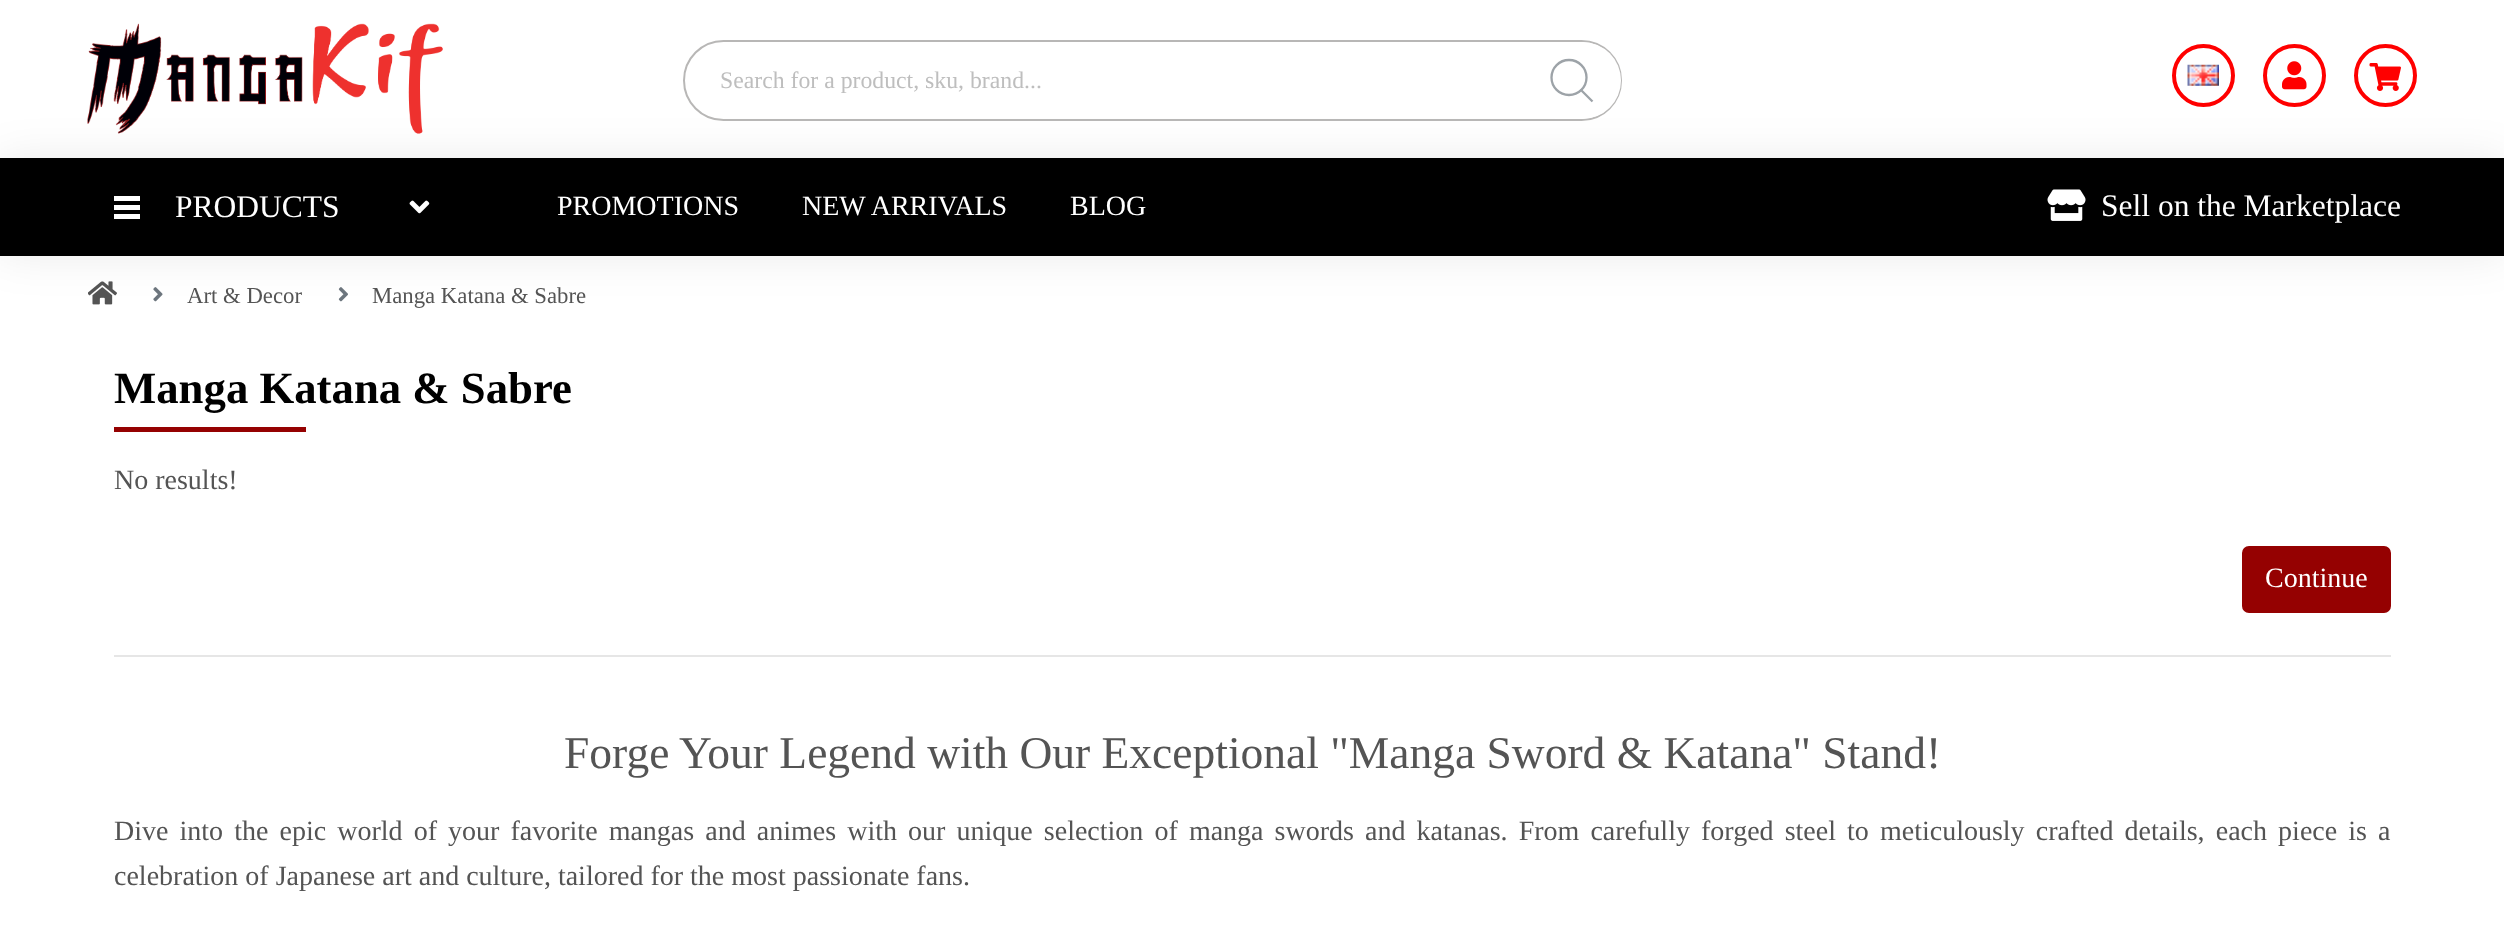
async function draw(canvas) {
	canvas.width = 2504;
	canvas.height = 949;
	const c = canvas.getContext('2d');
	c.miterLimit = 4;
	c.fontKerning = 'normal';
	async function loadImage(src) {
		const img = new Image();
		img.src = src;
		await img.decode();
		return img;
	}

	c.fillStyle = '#fff';
	c.fillRect(0, 0, 2504, 949);
	c.fillStyle = '#00000014';
	c.filter = 'blur(22px)';
	c.beginPath();
	c.rect(0, 158, 2504, 98);
	c.fill();
	c.filter = 'none';
	c.drawImage(await loadImage('img1.png'), 87, 23, 356, 111);
	c.beginPath();
	c.roundRect(684, 41, 937, 79, 39.5);
	c.strokeStyle = '#b8b7b6';
	c.lineWidth = 2;
	c.stroke();
	c.font = '23.75px Liberation Serif';
	c.fillStyle = '#bebebe';
	c.fillText('Search for a product, sku, brand...', 720, 88);
	c.fillStyle = '#fff';
	c.beginPath();
	c.roundRect(1521, 42, 100, 77, 38.5);
	c.fill();
	c.beginPath();
	c.arc(1569, 77.5, 17.5, 0, 2 * Math.PI);
	c.strokeStyle = '#9da3a8';
	c.lineWidth = 2.3;
	c.stroke();
	c.beginPath();
	c.moveTo(1580.5, 89.5);
	c.lineTo(1592.5, 101.5);
	c.stroke();
	c.beginPath();
	c.arc(2203.5, 75.5, 29.5, 0, 2 * Math.PI);
	c.strokeStyle = '#f00';
	c.lineWidth = 4;
	c.stroke();
	c.drawImage(await loadImage('img2.png'), 2187, 64, 32, 22);
	c.beginPath();
	c.arc(2294.5, 75.5, 29.5, 0, 2 * Math.PI);
	c.stroke();
	c.drawImage(await loadImage('img3.png'), 2282, 61, 25, 29);
	c.beginPath();
	c.arc(2385.5, 75.5, 29.5, 0, 2 * Math.PI);
	c.stroke();
	c.drawImage(await loadImage('img4.png'), 2369, 63, 32, 28);
	for (const [x, y, w, h, color] of [
		[0, 158, 2504, 98, '#000'],
		[114, 196, 26, 5, '#fff'],
		[114, 205, 26, 5, '#fff'],
		[114, 214, 26, 5, '#fff'],
	]) {
		c.fillStyle = color;
		c.fillRect(x, y, w, h);
	}
	c.font = '31.5px Liberation Serif';
	c.fillText('PRODUCTS', 175, 217);
	c.drawImage(await loadImage('img5.png'), 409, 200, 21, 14);
	c.font = '28px Liberation Serif';
	for (const [text, x, y] of [
		['PROMOTIONS', 557, 215],
		['NEW ARRIVALS', 802, 215],
		['BLOG', 1070, 215],
	]) {
		c.fillText(text, x, y);
	}
	c.drawImage(await loadImage('img6.png'), 2047, 189, 39, 32);
	c.font = '31.5px Liberation Serif';
	c.fillText('Sell on the Marketplace', 2101, 216);
	c.drawImage(await loadImage('img7.png'), 88, 281, 29, 24);
	c.drawImage(await loadImage('img8.png'), 153, 287, 10, 15);
	c.font = '22.75px Liberation Serif';
	c.fillStyle = '#545454';
	c.fillText('Art & Decor', 187, 303);
	c.drawImage(await loadImage('img9.png'), 338, 287, 10, 15);
	c.fillText('Manga Katana & Sabre', 372, 303);
	c.font = 'bold 44.75px Liberation Serif';
	c.fillStyle = '#000';
	c.fillText('Manga Katana & Sabre', 114, 403);
	c.fillStyle = '#950101';
	c.fillRect(114, 427, 192, 5);
	c.font = '28px Liberation Serif';
	c.fillStyle = '#545454';
	c.fillText('No results!', 114, 489);
	c.fillStyle = '#950101';
	c.beginPath();
	c.roundRect(2243, 547, 147, 65, 6);
	c.fill();
	c.strokeStyle = '#950101';
	c.lineWidth = 2;
	c.stroke();
	c.fillStyle = '#fff';
	c.fillText('Continue', 2265, 587);
	c.fillStyle = '#e6e6e6';
	c.fillRect(114, 655, 2277, 2);
	c.font = '45.5px Liberation Serif';
	c.fillStyle = '#545454';
	c.fillText('Forge Your Legend with Our Exceptional "Manga Sword & Katana" Stand!', 564, 768);
	c.wordSpacing = '4.1px';
	c.font = '28px Liberation Serif';
	c.fillText('Dive into the epic world of your favorite mangas and animes with our unique selection of manga swords and katanas. From carefully forged steel to meticulously crafted details, each piece is a', 114, 840);
	c.wordSpacing = '0px';
	c.fillText('celebration of Japanese art and culture, tailored for the most passionate fans.', 114, 885);
}

draw(document.querySelector('canvas'));
